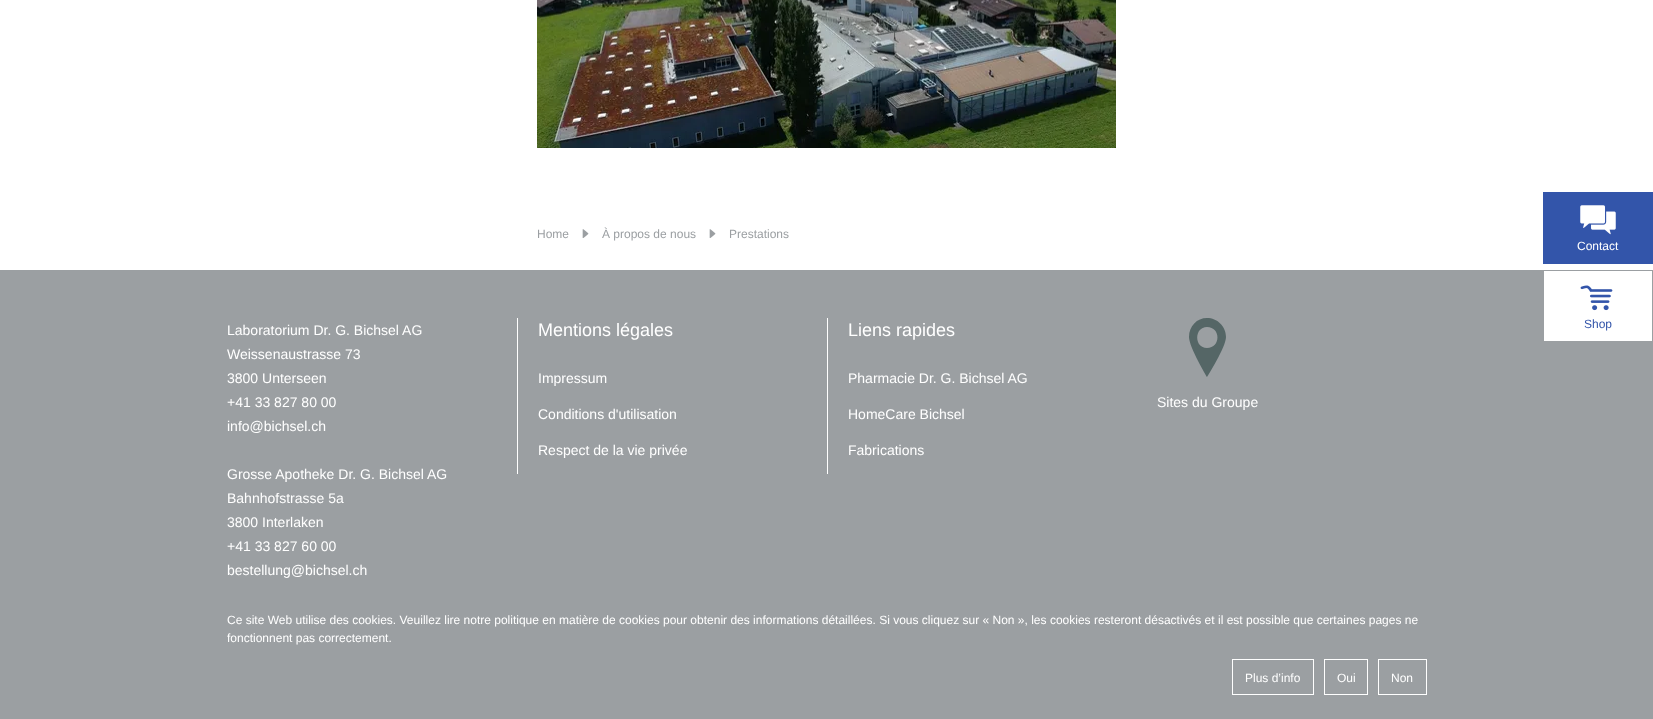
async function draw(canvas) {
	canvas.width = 1653;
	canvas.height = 719;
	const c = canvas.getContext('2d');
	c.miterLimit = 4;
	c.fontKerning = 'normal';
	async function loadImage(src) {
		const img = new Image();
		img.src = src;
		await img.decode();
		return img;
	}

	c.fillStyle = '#fff';
	c.fillRect(0, 0, 1653, 719);
	c.font = '12px Liberation Sans';
	c.fillStyle = '#9b9fa2';
	c.fillText('Home', 537, 238);
	c.drawImage(await loadImage('img1.png'), 582, 229, 7, 9);
	c.fillText('À propos de nous', 602, 238);
	c.drawImage(await loadImage('img1.png'), 709, 229, 7, 9);
	c.fillText('Prestations', 729, 238);
	c.drawImage(await loadImage('img2.png'), 537, 0, 579, 148);
	c.fillStyle = '#35a';
	c.fillRect(1543, 192, 110, 72);
	c.drawImage(await loadImage('img3.png'), 1580, 205, 36, 30);
	c.fillStyle = '#fff';
	c.fillText('Contact', 1577, 250);
	c.fillStyle = '#9b9fa2';
	c.fillRect(0, 270, 1653, 449);
	c.fillStyle = '#fff';
	c.fillRect(1544, 271, 108, 70);
	c.drawImage(await loadImage('img4.png'), 1580, 285, 33, 26);
	c.fillStyle = '#35a';
	c.fillText('Shop', 1584, 328);
	c.font = '14px Liberation Sans';
	c.fillStyle = '#fff';
	for (const [text, x, y] of [
		['Laboratorium Dr. G. Bichsel AG', 227, 335],
		['Weissenaustrasse 73', 227, 359],
		['3800 Unterseen', 227, 383],
		['+41 33 827 80 00', 227, 407],
		['info@bichsel.ch', 227, 431],
		['Grosse Apotheke Dr. G. Bichsel AG', 227, 479],
		['Bahnhofstrasse 5a', 227, 503],
		['3800 Interlaken', 227, 527],
		['+41 33 827 60 00', 227, 551],
		['bestellung@bichsel.ch', 227, 575],
	]) {
		c.fillText(text, x, y);
	}
	c.fillRect(517, 318, 1, 156);
	c.font = '18px Liberation Sans';
	c.fillText('Mentions légales', 538, 336);
	c.font = '14px Liberation Sans';
	for (const [text, x, y] of [
		['Impressum', 538, 383],
		['Conditions d\'utilisation', 538, 419],
		['Respect de la vie privée', 538, 455],
	]) {
		c.fillText(text, x, y);
	}
	c.fillRect(827, 318, 1, 156);
	c.font = '18px Liberation Sans';
	c.fillText('Liens rapides', 848, 336);
	c.font = '14px Liberation Sans';
	for (const [text, x, y] of [
		['Pharmacie Dr. G. Bichsel AG', 848, 383],
		['HomeCare Bichsel', 848, 419],
		['Fabrications', 848, 455],
	]) {
		c.fillText(text, x, y);
	}
	c.fillStyle = '#566';
	c.beginPath();
	c.moveTo(1207, 348);
	c.bezierCurveTo(1221, 348, 1221, 327, 1207, 327);
	c.bezierCurveTo(1194, 327, 1194, 348, 1207, 348);
	c.closePath();
	c.moveTo(1207, 318);
	c.bezierCurveTo(1217, 318, 1226, 326, 1226, 337);
	c.bezierCurveTo(1226, 347, 1207, 377, 1207, 377);
	c.bezierCurveTo(1207, 377, 1189, 347, 1189, 337);
	c.bezierCurveTo(1189, 326, 1197, 318, 1207, 318);
	c.closePath();
	c.fill();
	c.fillStyle = '#fff';
	c.fillText('Sites du Groupe', 1157, 407);
	c.font = '12px Liberation Sans';
	c.fillText('Ce site Web utilise des cookies. Veuillez lire notre politique en matière de cookies pour obtenir des informations détaillées. Si vous cliquez sur « Non », les cookies resteront désactivés et il est possible que certaines pages ne', 227, 624);
	c.fillText('fonctionnent pas correctement.', 227, 642);
	c.strokeStyle = '#fff';
	c.strokeRect(1232.5, 659.5, 81, 35);
	c.fillText('Plus d’info', 1245, 682);
	c.strokeRect(1324.5, 659.5, 43, 35);
	c.fillText('Oui', 1337, 682);
	c.strokeRect(1378.5, 659.5, 48, 35);
	c.fillText('Non', 1391, 682);
}

draw(document.querySelector('canvas'));
